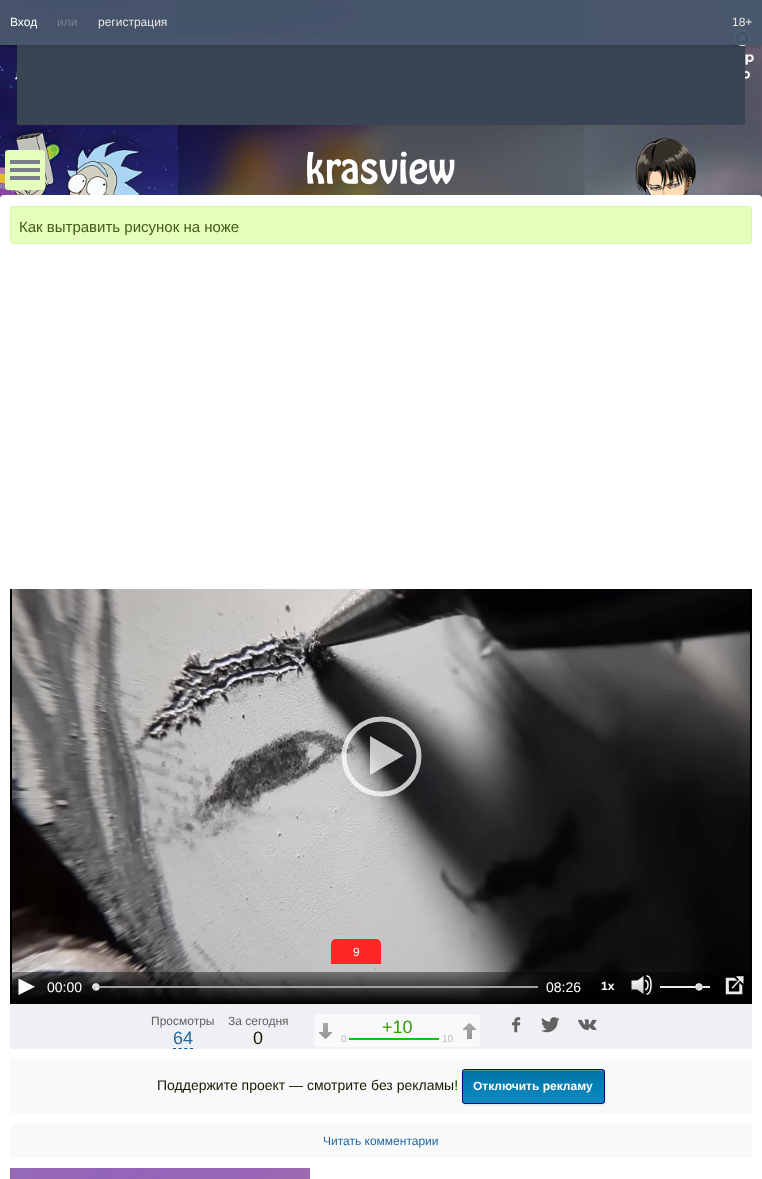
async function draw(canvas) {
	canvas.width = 762;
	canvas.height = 1179;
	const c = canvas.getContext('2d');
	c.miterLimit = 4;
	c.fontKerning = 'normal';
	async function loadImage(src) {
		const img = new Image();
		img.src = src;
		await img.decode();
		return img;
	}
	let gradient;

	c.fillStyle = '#fff';
	c.fillRect(0, 0, 762, 1179);
	c.drawImage(await loadImage('img1.png'), 0, 0, 762, 199);
	c.fillStyle = '#394455';
	c.fillRect(17, 35, 728, 90);
	c.drawImage(await loadImage('img2.png'), 734, 30, 16, 16);
	c.save();
	c.beginPath();
	c.rect(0, 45, 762, 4);
	c.clip();
	c.fillStyle = '#00000033';
	c.filter = 'blur(2px)';
	c.beginPath();
	c.rect(0, 1, 762, 45);
	c.fill();
	c.filter = 'none';
	c.restore();
	c.fillStyle = '#49576df2';
	c.fillRect(0, 0, 762, 45);
	c.font = '12px Liberation Sans';
	c.fillStyle = '#fff';
	c.fillText('Вход', 10, 26);
	c.fillStyle = '#79808c';
	c.fillText('или', 57, 26);
	c.fillStyle = '#e5e5e5';
	c.fillText('регистрация', 98, 26);
	c.fillText('18+', 732, 26);
	c.drawImage(await loadImage('img3.png'), 307, 151, 148, 34);
	c.fillStyle = '#e4ffbc';
	c.beginPath();
	c.roundRect(5, 150, 40, 40, 3);
	c.fill();
	for (const [x, y, w, h, color] of [
		[10, 168, 30, 4, '#79808c'],
		[10, 160, 30, 4, '#79808c'],
		[10, 176, 30, 4, '#79808c'],
	]) {
		c.fillStyle = color;
		c.fillRect(x, y, w, h);
	}
	c.fillStyle = '#fff';
	c.beginPath();
	c.roundRect(0, 195, 762, 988, 4);
	c.fill();
	c.fillStyle = '#e4ffbc';
	c.beginPath();
	c.roundRect(10.5, 206.5, 741, 37, 2.5);
	c.fill();
	c.strokeStyle = '#d7f6a9';
	c.stroke();
	c.font = '15px Liberation Sans';
	c.fillStyle = '#435b15';
	c.fillText('Как вытравить рисунок на ноже', 19, 232);
	c.fillStyle = '#000';
	c.fillRect(10, 589, 742, 415);
	c.drawImage(await loadImage('img4.png'), 12, 589, 738, 415);
	c.fillStyle = '#ff2626';
	c.beginPath();
	c.roundRect(331, 939, 50, 25, [5, 5, 0, 0]);
	c.fill();
	c.font = '12px Liberation Sans';
	c.fillStyle = '#fff';
	c.fillText('9', 353, 956);
	c.fillStyle = '#ffffffbf';
	c.beginPath();
	c.moveTo(403.5, 755.5);
	c.lineTo(370, 775);
	c.lineTo(370, 736);
	c.closePath();
	c.fill();
	c.beginPath();
	c.moveTo(344, 756.5);
	c.bezierCurveTo(344, 736, 361, 719, 381.5, 719);
	c.bezierCurveTo(402, 719, 419, 736, 419, 756.5);
	c.bezierCurveTo(419, 777, 402, 794, 381.5, 794);
	c.bezierCurveTo(361, 794, 344, 777, 344, 756.5);
	c.closePath();
	c.strokeStyle = '#ffffffbf';
	c.lineWidth = 5;
	c.stroke();
	c.drawImage(await loadImage('img5.png'), 18, 978, 17, 17);
	c.font = '14px Liberation Sans';
	c.fillStyle = '#fff';
	c.fillText('00:00', 47, 992);
	c.fillStyle = '#a0a0a0';
	c.fillRect(92, 986, 446, 2);
	c.drawImage(await loadImage('img6.png'), 92, 983, 8, 8);
	c.fillStyle = '#fff';
	c.fillText('08:26', 546, 992);
	c.font = 'bold 12px Liberation Sans';
	c.fillText('1x', 601, 990);
	c.drawImage(await loadImage('img7.png'), 631, 975, 21, 20);
	c.fillStyle = '#ececec';
	c.fillRect(660, 986, 50, 2);
	c.drawImage(await loadImage('img8.png'), 695, 983, 8, 8);
	c.drawImage(await loadImage('img9.png'), 725, 976, 19, 19);
	c.fillStyle = '#eef0f3';
	c.beginPath();
	c.roundRect(10, 1004, 742, 45, [0, 0, 3, 3]);
	c.fill();
	c.font = '12px Liberation Sans';
	c.fillStyle = '#626262';
	c.fillText('Просмотры', 151, 1025);
	c.font = '18px Liberation Sans';
	c.fillStyle = '#2468a2';
	c.fillText('64', 173, 1044);
	c.beginPath();
	c.moveTo(173, 1048.5);
	c.lineTo(193, 1048.5);
	c.strokeStyle = '#005dad';
	c.lineWidth = 1;
	c.setLineDash([3, 2.67]);
	c.stroke();
	c.font = '12px Liberation Sans';
	c.fillStyle = '#626262';
	c.fillText('За сегодня', 228, 1025);
	c.font = '18px Liberation Sans';
	c.fillStyle = '#191900';
	c.fillText('0', 253, 1044);
	c.fillStyle = '#f8f9fa';
	c.beginPath();
	c.roundRect(314, 1014, 166, 33, 3);
	c.fill();
	c.drawImage(await loadImage('img10.png'), 319, 1023, 13, 16);
	c.font = '10px Liberation Sans';
	c.fillStyle = '#bbb';
	c.fillText('0', 341, 1042);
	c.font = '18px Liberation Sans';
	c.fillStyle = '#390';
	c.fillText('+10', 382, 1033);
	c.font = '10px Liberation Sans';
	c.fillStyle = '#bbb';
	c.fillText('10', 442, 1042);
	c.drawImage(await loadImage('img11.png'), 463, 1023, 13, 16);
	c.fillStyle = '#0c0';
	c.fillRect(349, 1038, 90, 2);
	c.drawImage(await loadImage('img12.png'), 512, 1017, 9, 16);
	c.drawImage(await loadImage('img13.png'), 541, 1017, 19, 16);
	c.drawImage(await loadImage('img14.png'), 578, 1019, 19, 11);
	c.fillStyle = '#f8f9fa';
	c.beginPath();
	c.roundRect(10, 1059, 742, 55, 3);
	c.fill();
	c.font = '14px Liberation Sans';
	c.fillStyle = '#191900';
	c.fillText('Поддержите проект — смотрите без рекламы!', 157, 1090);
	c.fillStyle = '#0000001a';
	c.filter = 'blur(1px)';
	c.beginPath();
	c.roundRect(462, 1070, 143, 35, 3);
	c.fill();
	c.filter = 'none';
	c.save();
	c.beginPath();
	c.roundRect(462, 1069, 143, 35, 3);
	c.clip();
	gradient = c.createLinearGradient(534, 1103, 534, 1070);
	gradient.addColorStop(0, '#0a8bc1');
	gradient.addColorStop(1, '#0073a5');
	c.fillStyle = gradient;
	c.fillRect(462, 1070, 143, 33);
	c.restore();
	c.fillStyle = '#4096bc';
	c.beginPath();
	c.moveTo(465, 1071);
	c.lineTo(602, 1071);
	c.bezierCurveTo(603, 1071, 604, 1072, 604, 1073);
	c.lineTo(604, 1071);
	c.lineTo(602, 1070);
	c.lineTo(464, 1070);
	c.bezierCurveTo(463, 1071, 463, 1072, 463, 1073);
	c.bezierCurveTo(463, 1072, 464, 1071, 465, 1071);
	c.closePath();
	c.fill();
	c.beginPath();
	c.roundRect(462.5, 1069.5, 142, 34, 2.5);
	c.strokeStyle = '#1b0088';
	c.setLineDash([]);
	c.stroke();
	c.font = 'bold 12px Liberation Sans';
	c.fillStyle = '#fff';
	c.fillText('Отключить рекламу', 473, 1090);
	c.fillStyle = '#f8f9fa';
	c.beginPath();
	c.roundRect(10, 1124, 742, 34, 3);
	c.fill();
	c.font = '12px Liberation Sans';
	c.fillStyle = '#2468a2';
	c.fillText('Читать комментарии', 323, 1145);
	c.drawImage(await loadImage('img15.png'), 10, 1168, 300, 11);
}

draw(document.querySelector('canvas'));
